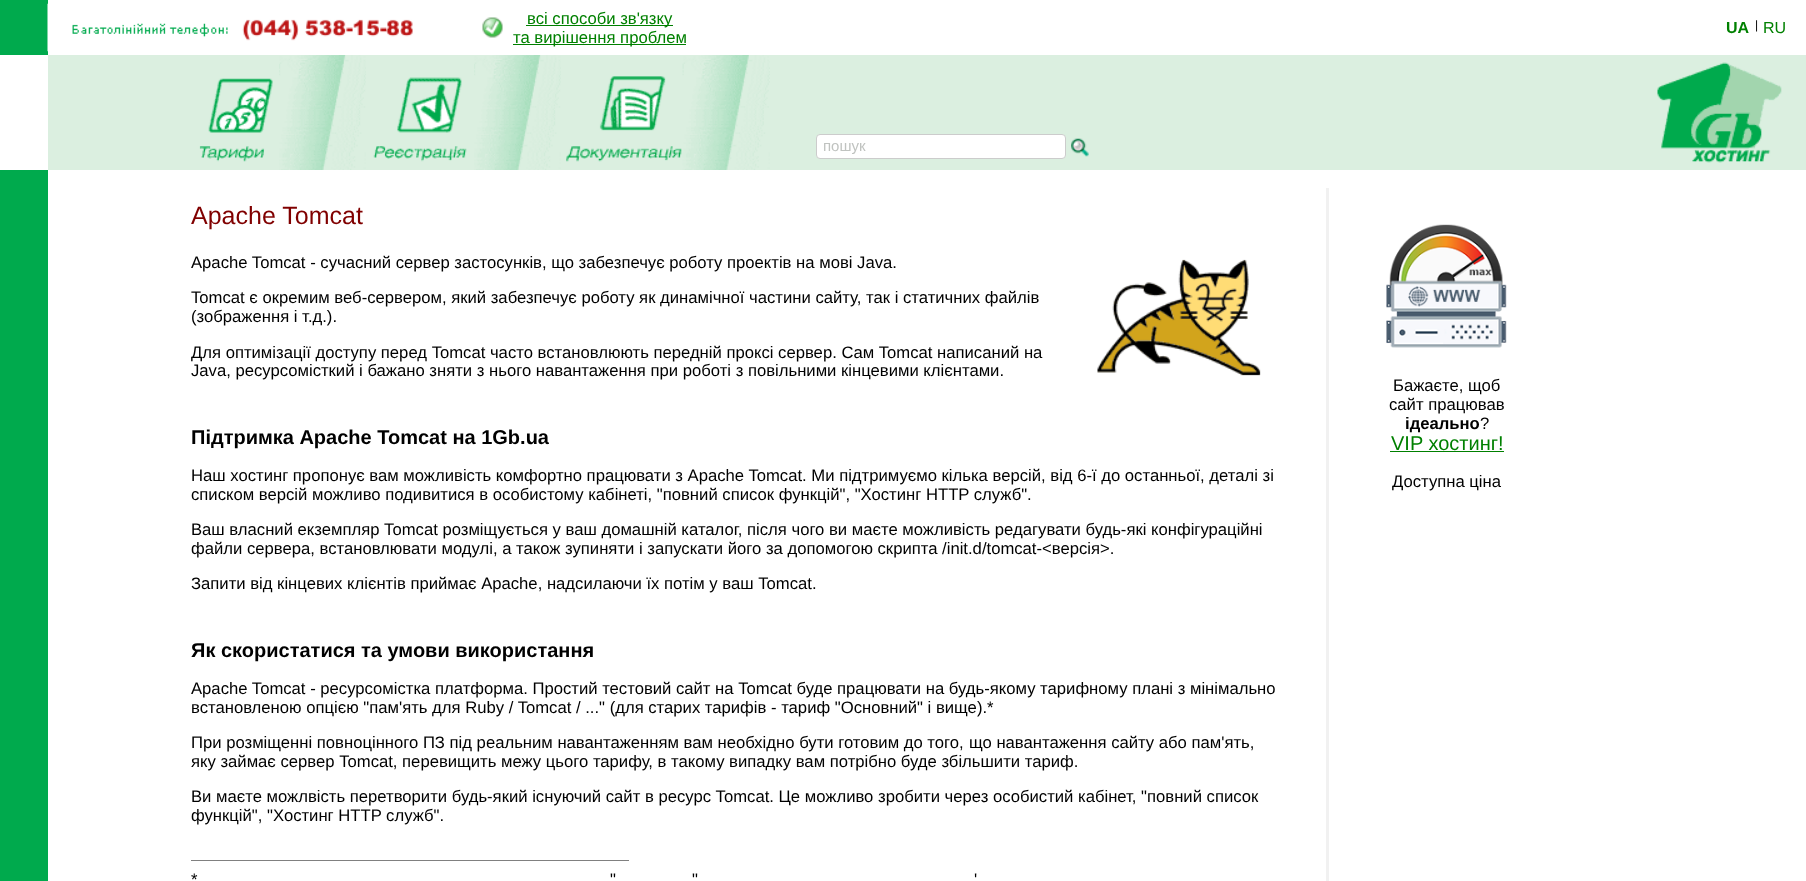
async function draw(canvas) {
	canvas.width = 1806;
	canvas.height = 881;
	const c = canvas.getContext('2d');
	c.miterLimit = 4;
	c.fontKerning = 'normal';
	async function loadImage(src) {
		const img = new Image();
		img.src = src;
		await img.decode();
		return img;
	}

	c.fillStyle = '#fff';
	c.fillRect(0, 0, 1806, 881);
	c.fillStyle = '#00aa4d';
	c.fillRect(0, 0, 48, 55);
	c.drawImage(await loadImage('img1.png'), 47, 3, 366, 49);
	c.drawImage(await loadImage('img2.png'), 482, 17, 21, 21);
	c.fillStyle = '#008000';
	c.fillRect(526, 25, 147, 1);
	c.font = '16.67px Liberation Sans';
	c.fillText('всі способи зв\'язку', 527, 24);
	c.fillRect(513, 44, 173, 1);
	c.fillText('та вирішення проблем', 513, 43);
	c.font = 'bold 16px Liberation Sans';
	c.fillText('UA', 1726, 33);
	c.font = '12px Liberation Sans';
	c.fillStyle = '#000';
	c.fillText('|', 1755, 29);
	c.font = '16px Liberation Sans';
	c.fillStyle = '#008000';
	c.fillText('RU', 1763, 33);
	c.fillStyle = '#dbefe0';
	c.fillRect(48, 55, 1758, 115);
	c.drawImage(await loadImage('img3.png'), 199, 78, 74, 84);
	c.drawImage(await loadImage('img4.png'), 279, 55, 87, 115);
	c.drawImage(await loadImage('img5.png'), 373, 77, 94, 85);
	c.drawImage(await loadImage('img6.png'), 474, 55, 87, 115);
	c.drawImage(await loadImage('img7.png'), 566, 76, 116, 86);
	c.drawImage(await loadImage('img8.png'), 682, 55, 88, 115);
	c.fillStyle = '#fff';
	c.beginPath();
	c.roundRect(816.5, 134.5, 249, 24, 3.5);
	c.fill();
	c.strokeStyle = '#ccc';
	c.stroke();
	c.font = '15px Liberation Sans';
	c.fillStyle = '#c0c3c0';
	c.fillText('пошук', 823, 151);
	c.drawImage(await loadImage('img9.png'), 1071, 138, 18, 19);
	c.drawImage(await loadImage('img10.png'), 1657, 62, 125, 101);
	c.fillStyle = '#00aa4d';
	c.fillRect(0, 170, 48, 711);
	c.font = '25px Liberation Sans';
	c.fillStyle = '#800000';
	c.fillText('Apache Tomcat', 191, 224);
	c.font = '16.67px Liberation Sans';
	c.fillStyle = '#000';
	c.fillText('Apache Tomcat - сучасний сервер застосунків, що забезпечує роботу проектів на мові Java.', 191, 268);
	c.drawImage(await loadImage('img11.png'), 1097, 259, 164, 117);
	for (const [text, x, y] of [
		['Tomcat є окремим веб-сервером, який забезпечує роботу як динамічної частини сайту, так і статичних файлів', 191, 303],
		['(зображення і т.д.).', 191, 322],
		['Для оптимізації доступу перед Tomcat часто встановлюють передній проксі сервер. Cам Tomcat написаний на', 191, 358],
		['Java, ресурсомісткий і бажано зняти з нього навантаження при роботі з повільними кінцевими клієнтами.', 191, 376],
	]) {
		c.fillText(text, x, y);
	}
	c.font = 'bold 20px Liberation Sans';
	c.fillText('Підтримка Apache Tomcat на 1Gb.ua', 191, 444);
	c.font = '16.67px Liberation Sans';
	for (const [text, x, y] of [
		['Наш хостинг пропонує вам можливість комфортно працювати з Apache Tomcat. Ми підтримуємо кілька версій, від 6-ї до останньої, деталі зі', 191, 481],
		['списком версій можливо подивитися в особистому кабінеті, "повний список функцій", "Хостинг HTTP служб".', 191, 500],
		['Ваш власний екземпляр Tomcat розміщується у ваш домашній каталог, після чого ви маєте можливість редагувати будь-які конфігураційні', 191, 535],
		['файли сервера, встановлювати модулі, а також зупиняти і запускати його за допомогою скрипта /init.d/tomcat-<версія>.', 191, 554],
		['Запити від кінцевих клієнтів приймає Apache, надсилаючи їх потім у ваш Tomcat.', 191, 589],
	]) {
		c.fillText(text, x, y);
	}
	c.font = 'bold 20px Liberation Sans';
	c.fillText('Як скористатися та умови використання', 191, 657);
	c.font = '16.67px Liberation Sans';
	for (const [text, x, y] of [
		['Apache Tomcat - ресурсомістка платформа. Простий тестовий сайт на Tomcat буде працювати на будь-якому тарифному плані з мінімально', 191, 694],
		['встановленою опцією "пам\'ять для Ruby / Tomcat / ..." (для старих тарифів - тариф "Основний" і вище).*', 191, 713],
		['При розміщенні повноцінного ПЗ під реальним навантаженням вам необхідно бути готовим до того,', 191, 748],
		['що навантаження сайту або пам\'ять,', 969, 748],
		['яку займає сервер Tomcat, перевищить межу цього тарифу, в такому випадку вам потрібно буде збільшити тариф.', 191, 767],
		['Ви маєте можлвість перетворити будь-який існуючий сайт в ресурс Tomcat. Це можливо зробити через особистий кабінет, "повний список', 191, 802],
		['функцій", "Хостинг HTTP служб".', 191, 821],
	]) {
		c.fillText(text, x, y);
	}
	c.fillStyle = '#808080';
	c.fillRect(191, 860, 438, 1);
	c.fillStyle = '#000';
	for (const [text, x, y] of [
		['*', 191, 885],
		['"', 610, 885],
		['"', 692, 885],
		['\'', 974, 885],
	]) {
		c.fillText(text, x, y);
	}
	c.fillStyle = '#f1f1f1';
	c.fillRect(1326, 188, 3, 693);
	c.drawImage(await loadImage('img12.png'), 1386, 224, 121, 124);
	c.fillStyle = '#000';
	c.fillText('Бажаєте, щоб', 1393, 391);
	c.fillText('сайт працював', 1389, 410);
	c.font = 'bold 16.67px Liberation Sans';
	c.fillText('ідеально', 1405, 429);
	c.font = '16.67px Liberation Sans';
	c.fillText('?', 1480, 429);
	c.font = '20px Liberation Sans';
	c.fillStyle = '#008000';
	c.fillText('VIP хостинг!', 1391, 450);
	c.fillRect(1390, 451, 114, 1);
	c.font = '16.67px Liberation Sans';
	c.fillStyle = '#000';
	c.fillText('Доступна ціна', 1392, 487);
}

draw(document.querySelector('canvas'));
